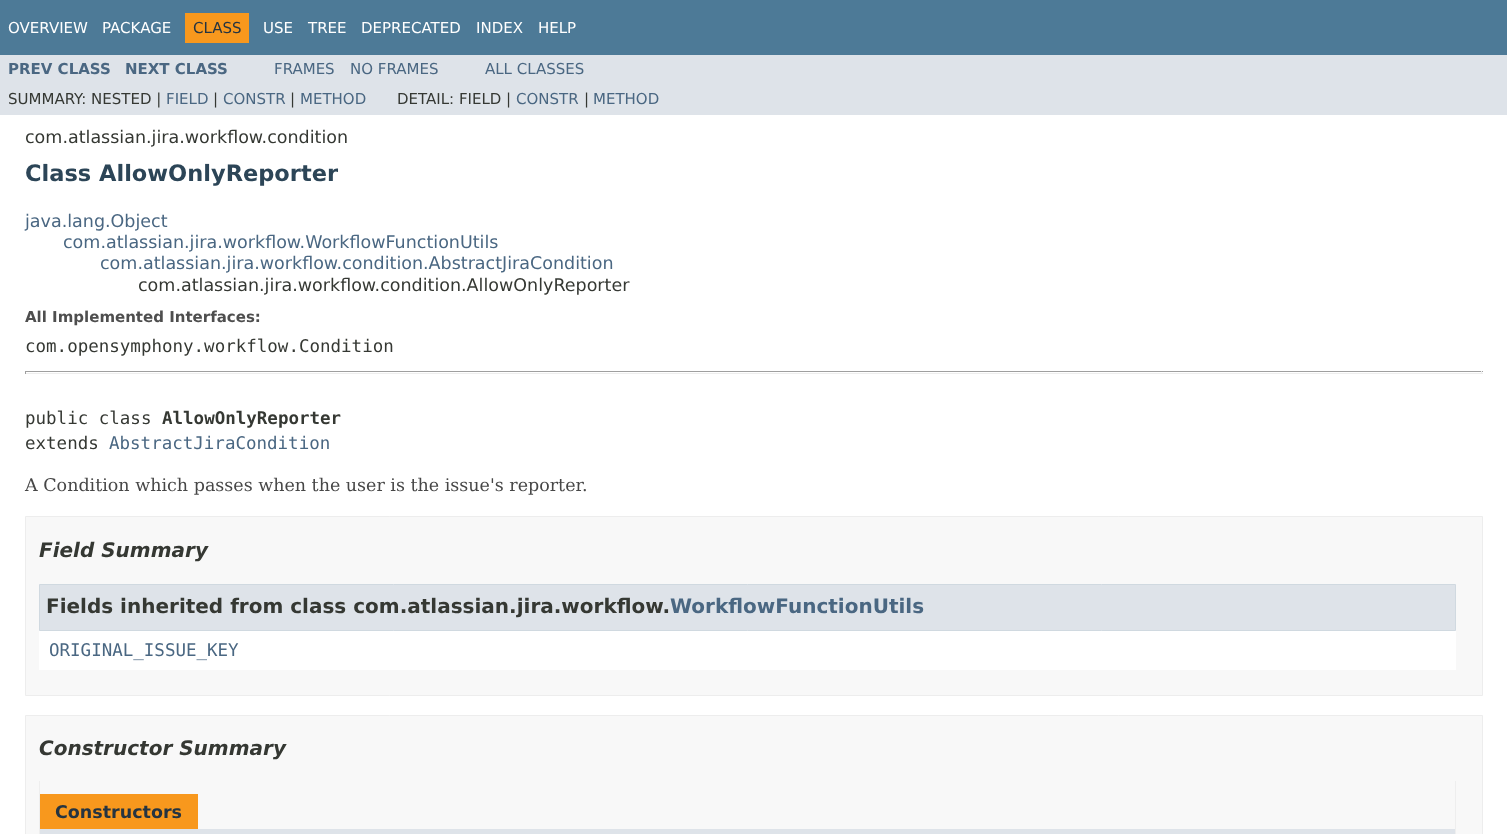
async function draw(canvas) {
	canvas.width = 1507;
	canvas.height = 834;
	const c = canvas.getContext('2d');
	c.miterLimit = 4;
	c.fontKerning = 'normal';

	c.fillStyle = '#fff';
	c.fillRect(0, 0, 1507, 834);
	c.fillStyle = '#4d7a97';
	c.fillRect(0, 0, 1507, 55);
	c.font = '15px DejaVu Sans';
	c.fillStyle = '#fff';
	c.fillText('OVERVIEW', 8, 33);
	c.fillText('PACKAGE', 102, 33);
	c.fillStyle = '#f8981d';
	c.fillRect(185, 13, 64, 30);
	c.fillStyle = '#253441';
	c.fillText('CLASS', 193, 33);
	c.fillStyle = '#fff';
	for (const [text, x, y] of [
		['USE', 263, 33],
		['TREE', 308, 33],
		['DEPRECATED', 361, 33],
		['INDEX', 476, 33],
		['HELP', 538, 33],
	]) {
		c.fillText(text, x, y);
	}
	c.fillStyle = '#dee3e9';
	c.fillRect(0, 55, 1507, 60);
	c.font = 'bold 15px DejaVu Sans';
	c.fillStyle = '#4a6782';
	c.fillText('PREV CLASS', 8, 74);
	c.fillText('NEXT CLASS', 125, 74);
	c.font = '15px DejaVu Sans';
	for (const [text, x, y] of [
		['FRAMES', 274, 74],
		['NO FRAMES', 350, 74],
		['ALL CLASSES', 485, 74],
	]) {
		c.fillText(text, x, y);
	}
	c.fillStyle = '#353833';
	c.fillText('SUMMARY: NESTED |', 8, 104);
	c.fillStyle = '#4a6782';
	c.fillText('FIELD', 166, 104);
	c.fillStyle = '#353833';
	c.fillText('|', 213, 104);
	c.fillStyle = '#4a6782';
	c.fillText('CONSTR', 223, 104);
	c.fillStyle = '#353833';
	c.fillText('|', 290, 104);
	c.fillStyle = '#4a6782';
	c.fillText('METHOD', 300, 104);
	c.fillStyle = '#353833';
	c.fillText('DETAIL: FIELD |', 397, 104);
	c.fillStyle = '#4a6782';
	c.fillText('CONSTR', 516, 104);
	c.fillStyle = '#353833';
	c.fillText('|', 584, 104);
	c.fillStyle = '#4a6782';
	c.fillText('METHOD', 593, 104);
	c.font = '17.5px DejaVu Sans';
	c.fillStyle = '#353833';
	c.fillText('com.atlassian.jira.workflow.condition', 25, 143);
	c.font = 'bold 22.5px DejaVu Sans';
	c.fillStyle = '#2c4557';
	c.fillText('Class AllowOnlyReporter', 25, 181);
	c.font = '17.5px DejaVu Sans';
	c.fillStyle = '#4a6782';
	for (const [text, x, y] of [
		['java.lang.Object', 25, 227],
		['com.atlassian.jira.workflow.WorkflowFunctionUtils', 63, 248],
		['com.atlassian.jira.workflow.condition.AbstractJiraCondition', 100, 269],
	]) {
		c.fillText(text, x, y);
	}
	c.fillStyle = '#353833';
	c.fillText('com.atlassian.jira.workflow.condition.AllowOnlyReporter', 138, 291);
	c.font = 'bold 15px DejaVu Sans';
	c.fillStyle = '#4e4e4e';
	c.fillText('All Implemented Interfaces:', 25, 322);
	c.font = '17.5px DejaVu Sans Mono';
	c.fillStyle = '#353833';
	c.fillText('com.opensymphony.workflow.Condition', 25, 352);
	for (const [x, y, w, h, color] of [
		[25, 371, 1458, 1, '#9f9f9f'],
		[1481, 371, 1, 3, '#eee'],
		[25, 373, 1458, 1, '#eee'],
		[25, 371, 1, 3, '#9f9f9f'],
	]) {
		c.fillStyle = color;
		c.fillRect(x, y, w, h);
	}
	c.fillStyle = '#353833';
	c.fillText('public class', 25, 424);
	c.font = 'bold 17.5px DejaVu Sans Mono';
	c.fillText('AllowOnlyReporter', 162, 424);
	c.font = '17.5px DejaVu Sans Mono';
	c.fillText('extends', 25, 449);
	c.fillStyle = '#4a6782';
	c.fillText('AbstractJiraCondition', 109, 449);
	c.font = '17.5px DejaVu Serif';
	c.fillStyle = '#474747';
	c.fillText('A Condition which passes when the user is the issue\'s reporter.', 25, 491);
	c.fillStyle = '#f8f8f8';
	c.beginPath();
	c.rect(25.5, 516.5, 1457, 179);
	c.fill();
	c.strokeStyle = '#ededed';
	c.stroke();
	c.font = 'italic bold 20px DejaVu Sans';
	c.fillStyle = '#353833';
	c.fillText('Field Summary', 39, 557);
	c.fillStyle = '#fff';
	c.fillRect(39, 631, 1417, 39);
	c.fillStyle = '#dee3e9';
	c.beginPath();
	c.rect(39.5, 584.5, 1416, 46);
	c.fill();
	c.strokeStyle = '#d0d9e0';
	c.stroke();
	c.font = 'bold 20px DejaVu Sans';
	c.fillStyle = '#353833';
	c.fillText('Fields inherited from class com.atlassian.jira.workflow.', 46, 613);
	c.fillStyle = '#4a6782';
	c.fillText('WorkflowFunctionUtils', 670, 613);
	c.font = '17.5px DejaVu Sans Mono';
	c.fillText('ORIGINAL_ISSUE_KEY', 49, 656);
	c.fillStyle = '#f8f8f8';
	c.beginPath();
	c.rect(25.5, 715.5, 1457, 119);
	c.fill();
	c.strokeStyle = '#ededed';
	c.stroke();
	c.font = 'italic bold 20px DejaVu Sans';
	c.fillStyle = '#353833';
	c.fillText('Constructor Summary', 39, 755);
	for (const [x, y, w, h, color] of [
		[1455, 781, 1, 53, '#eee'],
		[39, 781, 1, 53, '#eee'],
		[40, 794, 158, 35, '#f8981d'],
	]) {
		c.fillStyle = color;
		c.fillRect(x, y, w, h);
	}
	c.font = 'bold 17.5px DejaVu Sans';
	c.fillStyle = '#253441';
	c.fillText('Constructors', 55, 818);
	c.fillStyle = '#dee3e9';
	c.fillRect(40, 829, 1415, 5);
}

draw(document.querySelector('canvas'));
